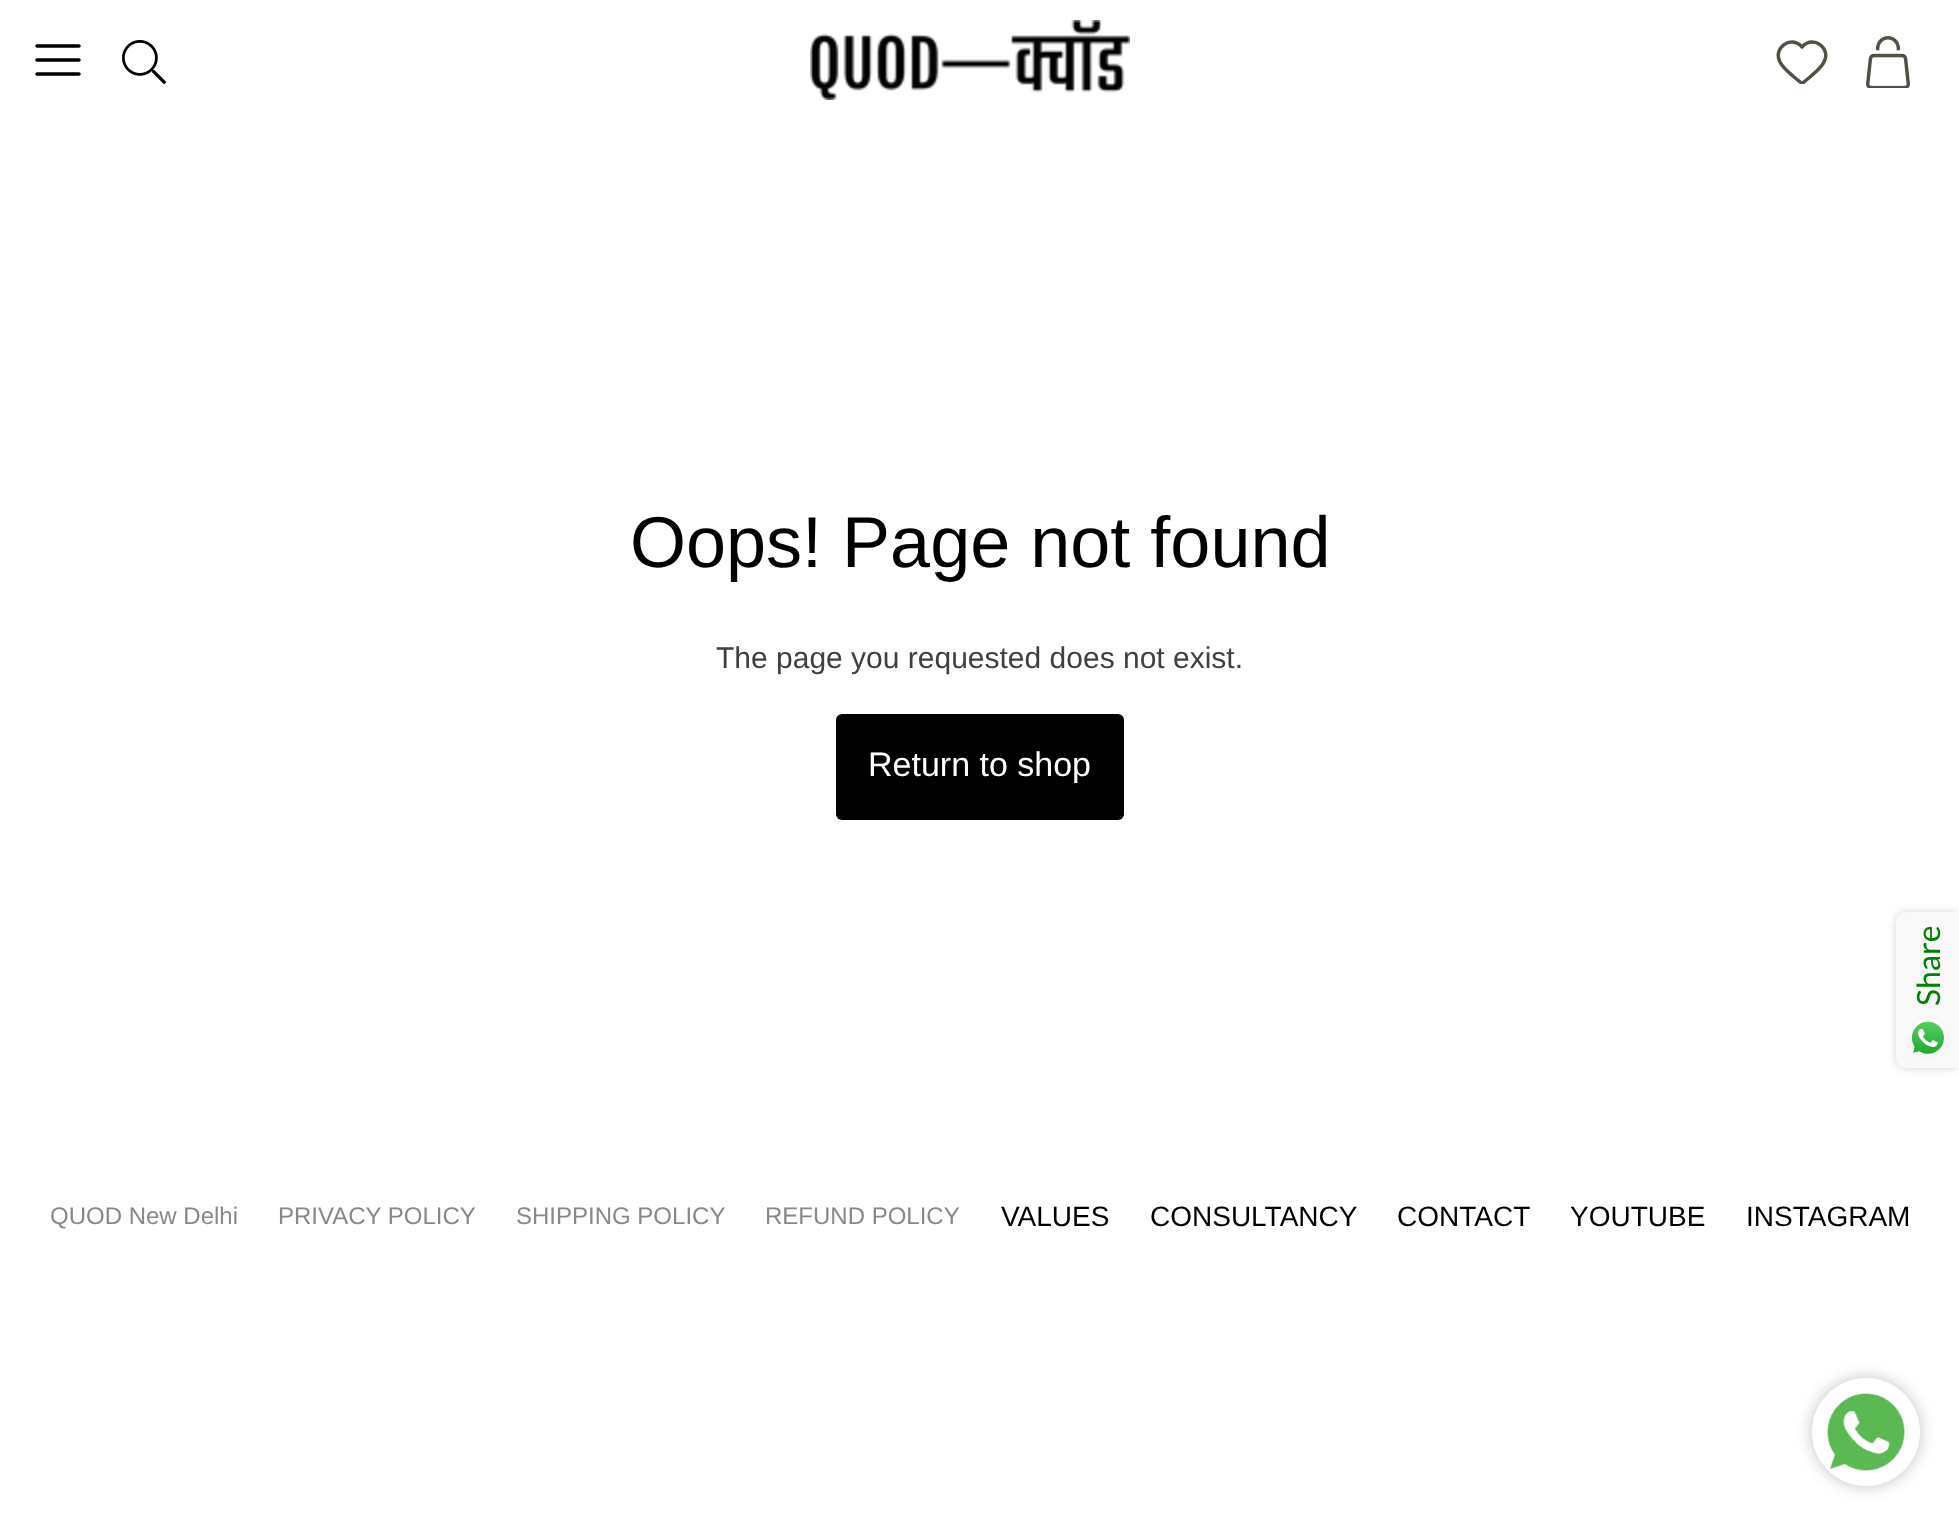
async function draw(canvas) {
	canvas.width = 1959;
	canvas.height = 1526;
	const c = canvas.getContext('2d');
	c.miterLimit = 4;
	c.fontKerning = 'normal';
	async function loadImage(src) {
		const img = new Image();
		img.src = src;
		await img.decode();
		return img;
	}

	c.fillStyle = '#fff';
	c.fillRect(0, 0, 1959, 1526);
	c.beginPath();
	c.moveTo(37, 60);
	c.lineTo(79, 60);
	c.moveTo(37, 46);
	c.lineTo(79, 46);
	c.moveTo(37, 74);
	c.lineTo(79, 74);
	c.strokeStyle = '#000';
	c.lineWidth = 3.5;
	c.lineCap = 'round';
	c.lineJoin = 'round';
	c.stroke();
	c.drawImage(await loadImage('img1.png'), 122, 40, 44, 44);
	c.drawImage(await loadImage('img2.png'), 810, 20, 320, 80);
	c.save();
	c.beginPath();
	c.rect(1774, 40, 56, 44);
	c.clip();
	c.beginPath();
	c.moveTo(1802, 47);
	c.bezierCurveTo(1791, 34.5, 1772.5, 48, 1780, 62);
	c.bezierCurveTo(1783, 68, 1789, 72.5, 1794, 77);
	c.lineTo(1802, 83.5);
	c.lineTo(1810, 77);
	c.bezierCurveTo(1815, 72.5, 1821, 68, 1824, 62);
	c.bezierCurveTo(1831.5, 48, 1813, 34.5, 1802, 47);
	c.closePath();
	c.strokeStyle = '#545045';
	c.stroke();
	c.restore();
	c.drawImage(await loadImage('img3.png'), 1866, 36, 44, 52);
	c.font = '72px Liberation Sans';
	c.fillStyle = '#000';
	c.fillText('Oops! Page not found', 630, 567);
	c.font = '30px Liberation Sans';
	c.fillStyle = '#404040';
	c.fillText('The page you requested does not exist.', 716, 668);
	c.fillStyle = '#000';
	c.beginPath();
	c.roundRect(836, 714, 288, 106, 6);
	c.fill();
	c.font = '34px Liberation Sans';
	c.fillStyle = '#fff';
	c.fillText('Return to shop', 868, 776);
	c.fillStyle = '#d3d3d3';
	c.filter = 'blur(5px)';
	c.beginPath();
	c.roundRect(1896, 912, 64, 156, 10);
	c.fill();
	c.filter = 'none';
	c.fillStyle = '#f9f9f9';
	c.beginPath();
	c.moveTo(1906, 912);
	c.lineTo(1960, 912);
	c.lineTo(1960, 1068);
	c.lineTo(1906, 1068);
	c.bezierCurveTo(1900.5, 1068, 1896, 1063.5, 1896, 1058);
	c.lineTo(1896, 922);
	c.bezierCurveTo(1896, 916.5, 1900.5, 912, 1906, 912);
	c.closePath();
	c.fill();
	c.font = '32px Lato';
	c.fillStyle = '#008000';
	c.save();
	c.translate(1940, 1006);
	c.rotate(-90 * Math.PI / 180);
	c.fillText('Share', 0, 0);
	c.restore();
	c.drawImage(await loadImage('img4.png'), 1908, 1019, 40, 39);
	c.font = '24px Liberation Sans';
	c.fillStyle = '#888';
	for (const [text, x, y] of [
		['QUOD New Delhi', 50, 1224],
		['PRIVACY POLICY', 278, 1224],
		['SHIPPING POLICY', 516, 1224],
		['REFUND POLICY', 765, 1224],
	]) {
		c.fillText(text, x, y);
	}
	c.font = '28px Liberation Sans';
	c.fillStyle = '#000';
	for (const [text, x, y] of [
		['VALUES', 1001, 1226],
		['CONSULTANCY', 1150, 1226],
		['CONTACT', 1397, 1226],
		['YOUTUBE', 1570, 1226],
		['INSTAGRAM', 1746, 1226],
	]) {
		c.fillText(text, x, y);
	}
	c.fillStyle = '#c2c2c2';
	c.filter = 'blur(8px)';
	c.beginPath();
	c.roundRect(1812, 1378, 108, 108, 54);
	c.fill();
	c.filter = 'none';
	c.drawImage(await loadImage('img5.png'), 1812, 1378, 108, 108);
}

draw(document.querySelector('canvas'));
